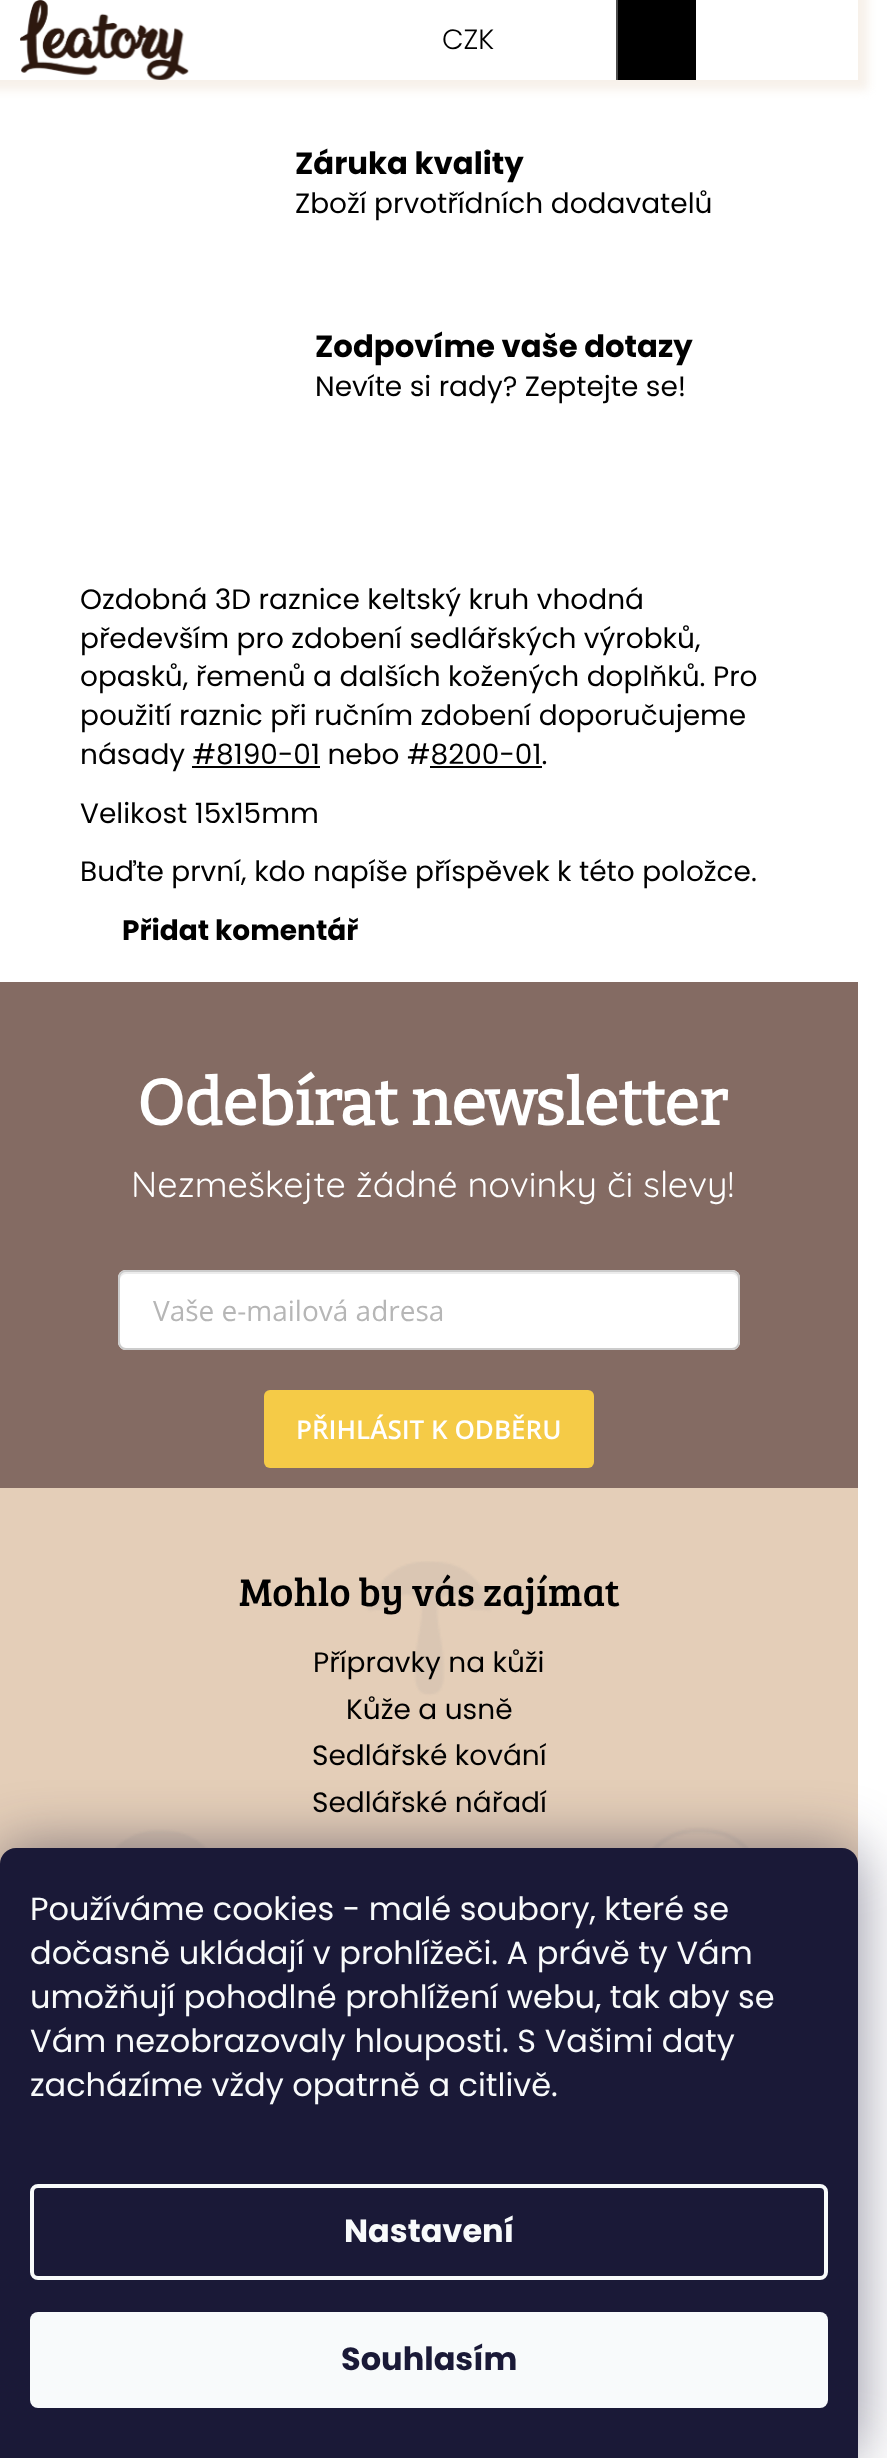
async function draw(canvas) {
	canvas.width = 887;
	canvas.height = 2458;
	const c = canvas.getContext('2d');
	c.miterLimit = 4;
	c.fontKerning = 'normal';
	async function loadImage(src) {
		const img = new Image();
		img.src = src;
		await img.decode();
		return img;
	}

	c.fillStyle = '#fff';
	c.fillRect(0, 0, 887, 2458);
	c.fillStyle = '#e4ceb84a';
	c.filter = 'blur(5px)';
	c.beginPath();
	c.rect(-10, -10, 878, 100);
	c.fill();
	c.filter = 'none';
	c.fillStyle = '#fff';
	c.fillRect(0, 0, 858, 80);
	c.drawImage(await loadImage('img1.png'), 20, 0, 169, 80);
	c.font = '300 28px Poppins';
	c.fillStyle = '#000';
	c.fillText('CZK', 442, 49);
	c.fillRect(618, 0, 78, 80);
	c.fillStyle = '#4d4d4d';
	c.fillRect(616, 0, 2, 80);
	c.font = 'bold 30.75px Poppins';
	c.fillStyle = '#000';
	c.fillText('Záruka kvality', 295, 174);
	c.font = '28px Poppins';
	c.fillText('Zboží prvotřídních dodavatelů', 295, 213);
	c.font = 'bold 30.75px Poppins';
	c.fillText('Zodpovíme vaše dotazy', 315, 357);
	c.font = '28px Poppins';
	for (const [text, x, y] of [
		['Nevíte si rady? Zeptejte se!', 315, 396],
		['Ozdobná 3D raznice keltský kruh vhodná', 80, 609],
		['především pro zdobení sedlářských výrobků,', 80, 648],
		['opasků, řemenů a dalších kožených doplňků. Pro', 80, 686],
		['použití raznic při ručním zdobení doporučujeme', 80, 725],
		['násady #8190-01 nebo #8200-01.', 80, 764],
	]) {
		c.fillText(text, x, y);
	}
	c.fillRect(192, 766, 128, 2);
	c.fillRect(430, 766, 112, 2);
	c.fillText('Velikost 15x15mm', 80, 823);
	c.fillText('Buďte první, kdo napíše příspěvek k této položce.', 80, 881);
	c.font = 'bold 28px Poppins';
	c.fillText('Přidat komentář', 122, 940);
	c.fillStyle = '#846b63';
	c.fillRect(0, 982, 858, 506);
	c.font = 'bold 64px Bitter';
	c.fillStyle = '#fff';
	c.fillText('Odebírat newsletter', 137, 1125);
	c.font = '300 36px Quicksand';
	c.fillText('Nezmeškejte žádné novinky či slevy!', 131, 1197);
	c.beginPath();
	c.roundRect(118, 1270, 622, 80, 8);
	c.fill();
	c.fillStyle = '#ececec';
	c.beginPath();
	c.moveTo(126, 1274);
	c.lineTo(732, 1274);
	c.bezierCurveTo(735, 1274, 738, 1277, 738, 1280);
	c.lineTo(738, 1278);
	c.bezierCurveTo(738, 1275, 735, 1272, 732, 1272);
	c.lineTo(126, 1272);
	c.bezierCurveTo(123, 1272, 120, 1275, 120, 1278);
	c.lineTo(120, 1280);
	c.bezierCurveTo(120, 1277, 123, 1274, 126, 1274);
	c.closePath();
	c.fill();
	c.beginPath();
	c.roundRect(119, 1271, 620, 78, 7);
	c.strokeStyle = '#ccc';
	c.lineWidth = 2;
	c.stroke();
	c.font = '28px Open Sans';
	c.fillStyle = '#b6b6b6';
	c.fillText('Vaše e-mailová adresa', 153, 1321);
	c.fillStyle = '#f5cb47';
	c.beginPath();
	c.roundRect(264, 1390, 330, 78, 6);
	c.fill();
	c.font = '600 26px Open Sans';
	c.fillStyle = '#fff';
	c.fillText('PŘIHLÁSIT K ODBĚRU', 296, 1439);
	c.fillStyle = '#e4ceb8';
	c.fillRect(0, 1488, 858, 376);
	c.drawImage(await loadImage('img2.png'), 115, 1561, 634, 287);
	c.font = '40px Bree Serif';
	c.fillStyle = '#000';
	c.fillText('Mohlo by vás zajímat', 239, 1606);
	c.font = '28px Poppins';
	for (const [text, x, y] of [
		['Přípravky na kůži', 313, 1672],
		['Kůže a usně', 346, 1719],
		['Sedlářské kování', 312, 1765],
		['Sedlářské nářadí', 312, 1812],
	]) {
		c.fillText(text, x, y);
	}
	c.fillStyle = '#1b193980';
	c.filter = 'blur(30px)';
	c.beginPath();
	c.roundRect(0, 1848, 858, 610, 16);
	c.fill();
	c.filter = 'none';
	c.fillStyle = '#1a1937';
	c.beginPath();
	c.roundRect(0, 1848, 858, 610, [16, 16, 0, 0]);
	c.fill();
	c.font = '32px Poppins';
	c.fillStyle = '#f8fafb';
	for (const [text, x, y] of [
		['Používáme cookies - malé soubory, které se', 30, 1920],
		['dočasně ukládají v prohlížeči. A právě ty Vám', 30, 1964],
		['umožňují pohodlné prohlížení webu, tak aby se', 30, 2008],
		['Vám nezobrazovaly hlouposti. S Vašimi daty', 30, 2052],
		['zacházíme vždy opatrně a citlivě.', 30, 2096],
	]) {
		c.fillText(text, x, y);
	}
	c.beginPath();
	c.roundRect(32, 2186, 794, 92, 6);
	c.strokeStyle = '#f8fafb';
	c.lineWidth = 4;
	c.stroke();
	c.font = 'bold 32px Poppins';
	c.fillText('Nastavení', 344, 2242);
	c.beginPath();
	c.roundRect(30, 2312, 798, 96, 8);
	c.fill();
	c.fillStyle = '#1a1937';
	c.fillText('Souhlasím', 341, 2370);
}

draw(document.querySelector('canvas'));
